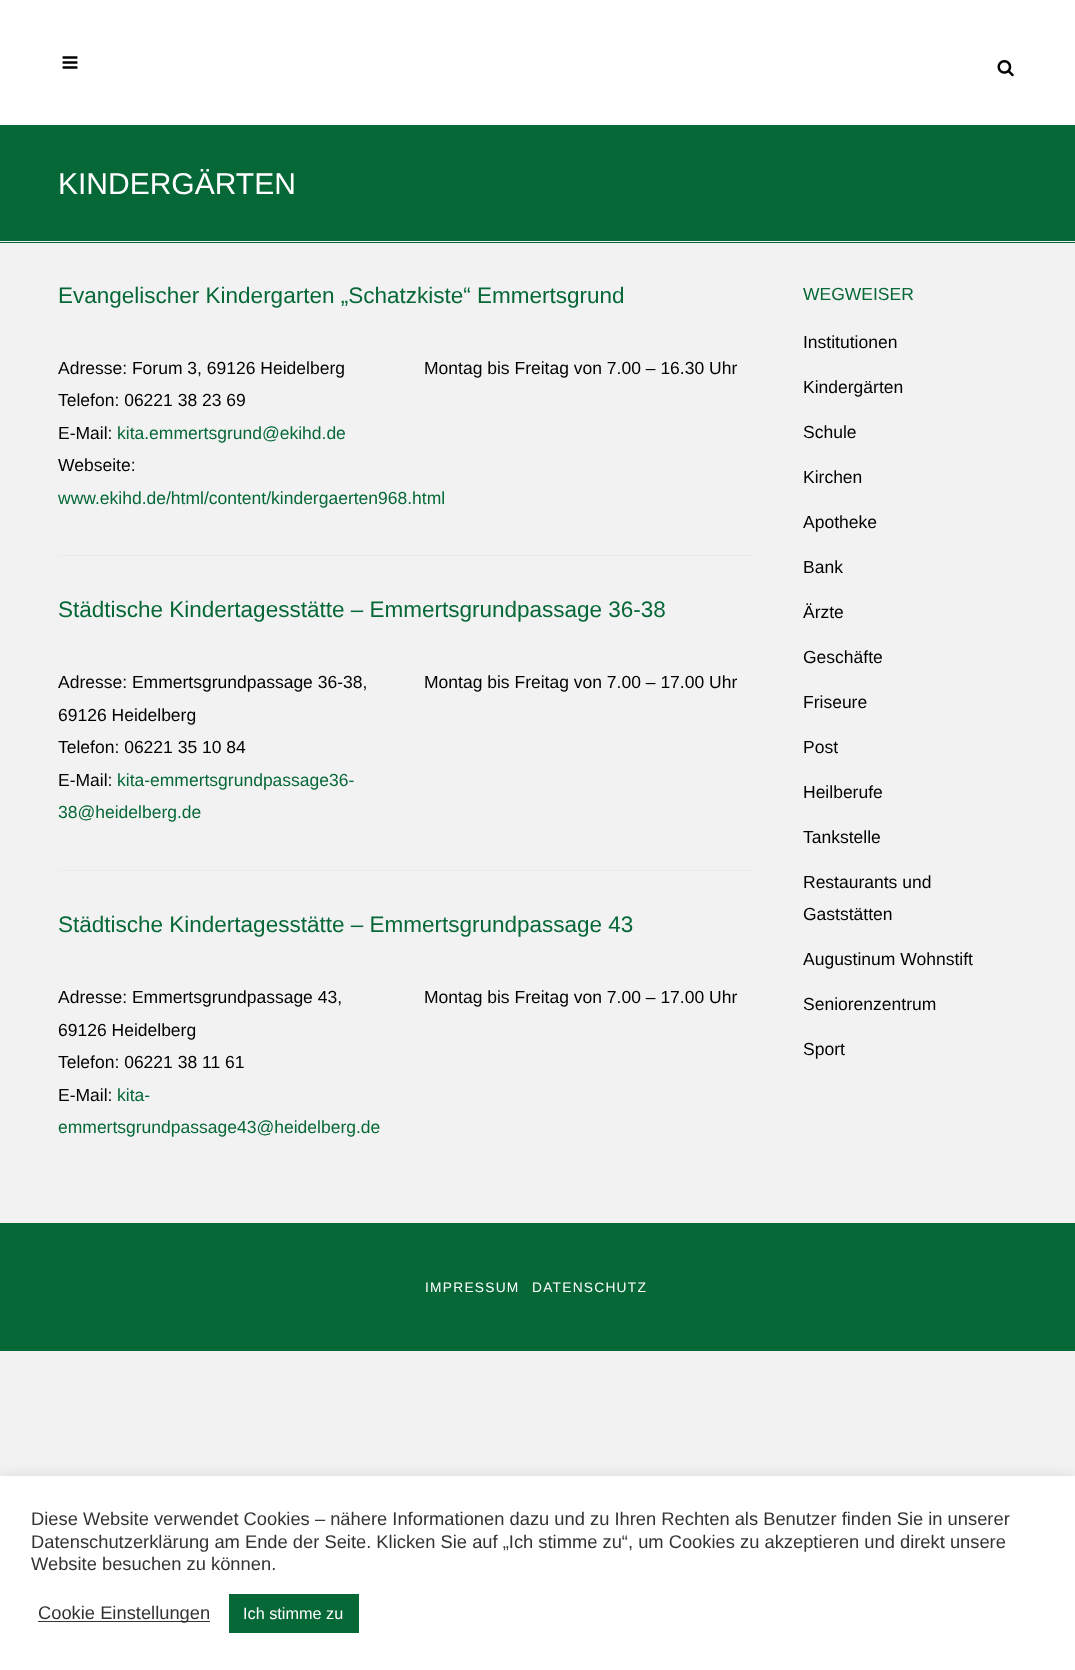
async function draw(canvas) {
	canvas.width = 1075;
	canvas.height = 1670;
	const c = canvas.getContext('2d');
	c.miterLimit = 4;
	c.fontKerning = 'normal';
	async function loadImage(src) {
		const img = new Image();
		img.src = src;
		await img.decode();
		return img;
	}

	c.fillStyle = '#f2f2f2';
	c.fillRect(0, 0, 1075, 1670);
	c.fillStyle = '#fff';
	c.fillRect(0, 0, 1075, 125);
	c.drawImage(await loadImage('img1.png'), 62, 56, 16, 13);
	c.drawImage(await loadImage('img2.png'), 997, 60, 17, 17);
	c.fillStyle = '#066837';
	c.fillRect(0, 125, 1075, 118);
	c.fillStyle = '#f2f2f2';
	c.fillRect(0, 241, 1075, 1);
	c.font = '30px Liberation Sans';
	c.fillStyle = '#fff';
	c.fillText('KINDERGÄRTEN', 58, 194);
	c.font = '22.5px Liberation Sans';
	c.fillStyle = '#066837';
	c.fillText('Evangelischer Kindergarten „Schatzkiste“ Emmertsgrund', 58, 303);
	c.font = '17.5px Liberation Sans';
	c.fillStyle = '#000';
	for (const [text, x, y] of [
		['Adresse: Forum 3, 69126 Heidelberg', 58, 374],
		['Telefon: 06221 38 23 69', 58, 406],
		['E-Mail:', 58, 439],
	]) {
		c.fillText(text, x, y);
	}
	c.fillStyle = '#066837';
	c.fillText('kita.emmertsgrund@ekihd.de', 117, 439);
	c.fillStyle = '#000';
	c.fillText('Webseite:', 58, 471);
	c.fillStyle = '#066837';
	c.fillText('www.ekihd.de/html/content/kindergaerten968.html', 58, 504);
	c.fillStyle = '#000';
	c.fillText('Montag bis Freitag von 7.00 – 16.30 Uhr', 424, 374);
	c.fillStyle = '#ebebeb';
	c.fillRect(58, 555, 695, 1);
	c.font = '22.5px Liberation Sans';
	c.fillStyle = '#066837';
	c.fillText('Städtische Kindertagesstätte – Emmertsgrundpassage 36-38', 58, 617);
	c.font = '17.5px Liberation Sans';
	c.fillStyle = '#000';
	for (const [text, x, y] of [
		['Adresse: Emmertsgrundpassage 36-38,', 58, 688],
		['69126 Heidelberg', 58, 721],
		['Telefon: 06221 35 10 84', 58, 753],
		['E-Mail:', 58, 786],
	]) {
		c.fillText(text, x, y);
	}
	c.fillStyle = '#066837';
	c.fillText('kita-emmertsgrundpassage36-', 117, 786);
	c.fillText('38@heidelberg.de', 58, 818);
	c.fillStyle = '#000';
	c.fillText('Montag bis Freitag von 7.00 – 17.00 Uhr', 424, 688);
	c.fillStyle = '#ebebeb';
	c.fillRect(58, 870, 695, 1);
	c.font = '22.5px Liberation Sans';
	c.fillStyle = '#066837';
	c.fillText('Städtische Kindertagesstätte – Emmertsgrundpassage 43', 58, 932);
	c.font = '17.5px Liberation Sans';
	c.fillStyle = '#000';
	for (const [text, x, y] of [
		['Adresse: Emmertsgrundpassage 43,', 58, 1003],
		['69126 Heidelberg', 58, 1036],
		['Telefon: 06221 38 11 61', 58, 1068],
		['E-Mail:', 58, 1101],
	]) {
		c.fillText(text, x, y);
	}
	c.fillStyle = '#066837';
	c.fillText('kita-', 117, 1101);
	c.fillText('emmertsgrundpassage43@heidelberg.de', 58, 1133);
	c.fillStyle = '#000';
	c.fillText('Montag bis Freitag von 7.00 – 17.00 Uhr', 424, 1003);
	c.fillStyle = '#066837';
	c.fillText('WEGWEISER', 803, 300);
	c.fillStyle = '#000';
	for (const [text, x, y] of [
		['Institutionen', 803, 348],
		['Kindergärten', 803, 393],
		['Schule', 803, 438],
		['Kirchen', 803, 483],
		['Apotheke', 803, 528],
		['Bank', 803, 573],
		['Ärzte', 803, 618],
		['Geschäfte', 803, 663],
		['Friseure', 803, 708],
		['Post', 803, 753],
		['Heilberufe', 803, 798],
		['Tankstelle', 803, 843],
		['Restaurants und', 803, 888],
		['Gaststätten', 803, 920],
		['Augustinum Wohnstift', 803, 965],
		['Seniorenzentrum', 803, 1010],
		['Sport', 803, 1055],
	]) {
		c.fillText(text, x, y);
	}
	c.fillStyle = '#066837';
	c.fillRect(0, 1223, 1075, 128);
	c.letterSpacing = '1.25px';
	c.font = '13.75px Liberation Sans';
	c.fillStyle = '#fff';
	c.fillText('IMPRESSUM', 425, 1292);
	c.fillText('DATENSCHUTZ', 532, 1292);
	c.fillStyle = '#acabab4d';
	c.filter = 'blur(6px)';
	c.beginPath();
	c.rect(0, 1475, 1075, 194);
	c.fill();
	c.filter = 'none';
	c.fillStyle = '#fff';
	c.fillRect(0, 1476, 1075, 194);
	c.letterSpacing = '0px';
	c.font = '18.33px Liberation Sans';
	c.fillStyle = '#333';
	for (const [text, x, y] of [
		['Diese Website verwendet Cookies – nähere Informationen dazu und zu Ihren Rechten als Benutzer finden Sie in unserer', 31, 1525],
		['Datenschutzerklärung am Ende der Seite. Klicken Sie auf „Ich stimme zu“, um Cookies zu akzeptieren und direkt unsere', 31, 1548],
		['Website besuchen zu können.', 31, 1570],
	]) {
		c.fillText(text, x, y);
	}
	c.fillRect(38, 1621, 172, 1);
	c.fillText('Cookie Einstellungen', 38, 1619);
	c.fillStyle = '#066837';
	c.fillRect(229, 1594, 130, 39);
	c.font = '16.25px Liberation Sans';
	c.fillStyle = '#fff';
	c.fillText('Ich stimme zu', 243, 1619);
}

draw(document.querySelector('canvas'));
